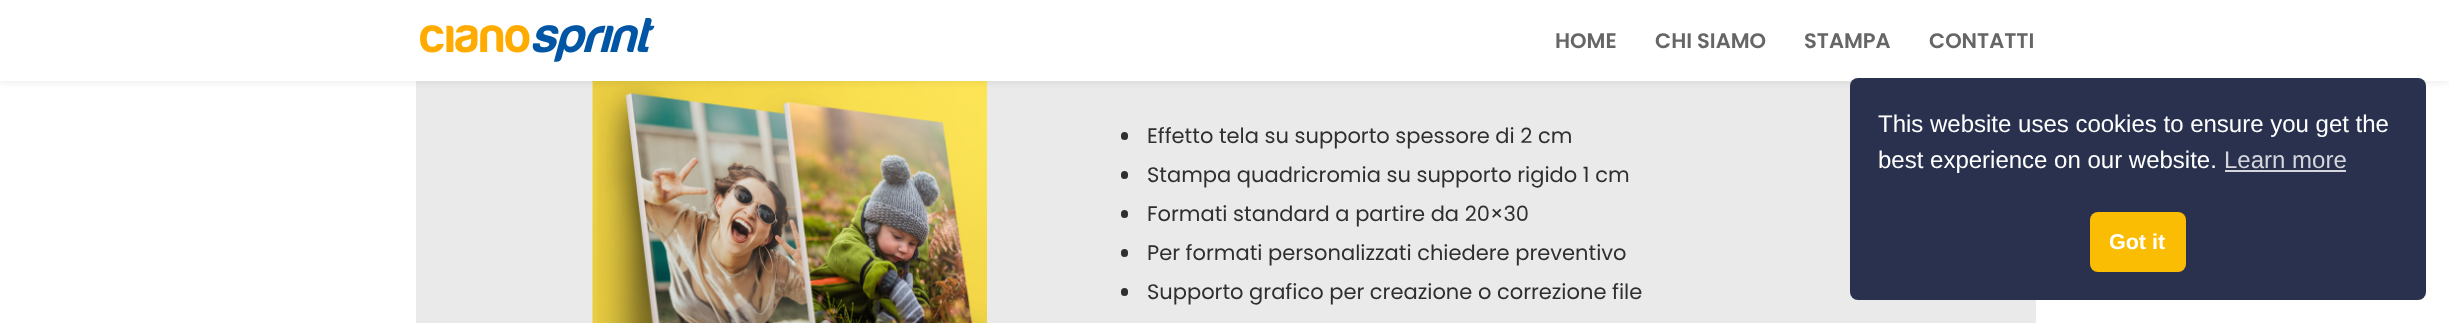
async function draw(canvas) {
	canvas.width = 2449;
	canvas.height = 323;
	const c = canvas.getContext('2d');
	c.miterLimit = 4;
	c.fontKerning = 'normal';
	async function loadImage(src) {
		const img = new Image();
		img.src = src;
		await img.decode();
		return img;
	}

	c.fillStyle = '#fff';
	c.fillRect(0, 0, 2449, 323);
	c.fillStyle = '#eaeaea';
	c.fillRect(416, 81, 1620, 242);
	c.drawImage(await loadImage('img2.png'), 592, 81, 395, 242);
	c.fillStyle = '#0000001a';
	c.filter = 'blur(5px)';
	c.beginPath();
	c.rect(0, 0, 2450, 81);
	c.fill();
	c.filter = 'none';
	c.fillStyle = '#fff';
	c.fillRect(0, 0, 2449, 81);
	c.drawImage(await loadImage('img1.png'), 420, 18, 235, 44);
	c.font = '600 21px Poppins';
	c.fillStyle = '#666';
	for (const [text, x, y] of [
		['HOME', 1555, 48],
		['CHI SIAMO', 1655, 48],
		['STAMPA', 1804, 48],
		['CONTATTI', 1929, 48],
	]) {
		c.fillText(text, x, y);
	}
	c.fillStyle = '#2f2f2f';
	c.beginPath();
	c.roundRect(1121, 132, 7, 8, 3.5);
	c.fill();
	c.font = '21px Poppins';
	c.fillText('Effetto tela su supporto spessore di 2 cm', 1147, 143);
	c.beginPath();
	c.roundRect(1121, 171, 7, 8, 3.5);
	c.fill();
	c.fillText('Stampa quadricromia su supporto rigido 1 cm', 1147, 182);
	c.beginPath();
	c.roundRect(1121, 210, 7, 8, 3.5);
	c.fill();
	c.fillText('Formati standard a partire da 20×30', 1147, 221);
	c.beginPath();
	c.roundRect(1121, 249, 7, 8, 3.5);
	c.fill();
	c.fillText('Per formati personalizzati chiedere preventivo', 1147, 260);
	c.beginPath();
	c.roundRect(1121, 288, 7, 8, 3.5);
	c.fill();
	c.fillText('Supporto grafico per creazione o correzione file', 1147, 299);
	c.fillStyle = '#29314f';
	c.beginPath();
	c.roundRect(1850, 78, 576, 222, 8);
	c.fill();
	c.font = '24px Liberation Sans';
	c.fillStyle = '#fff';
	c.fillText('This website uses cookies to ensure you get the', 1878, 132);
	c.fillText('best experience on our website.', 1878, 168);
	c.fillStyle = '#d4d6dc';
	c.fillText('Learn more', 2224, 168);
	c.fillRect(2225, 170, 121, 2);
	c.fillStyle = '#fbbd03';
	c.beginPath();
	c.roundRect(2090, 212, 96, 60, 8);
	c.fill();
	c.font = 'bold 21.5px Liberation Sans';
	c.fillStyle = '#fff';
	c.fillText('Got it', 2109, 249);
}

draw(document.querySelector('canvas'));
